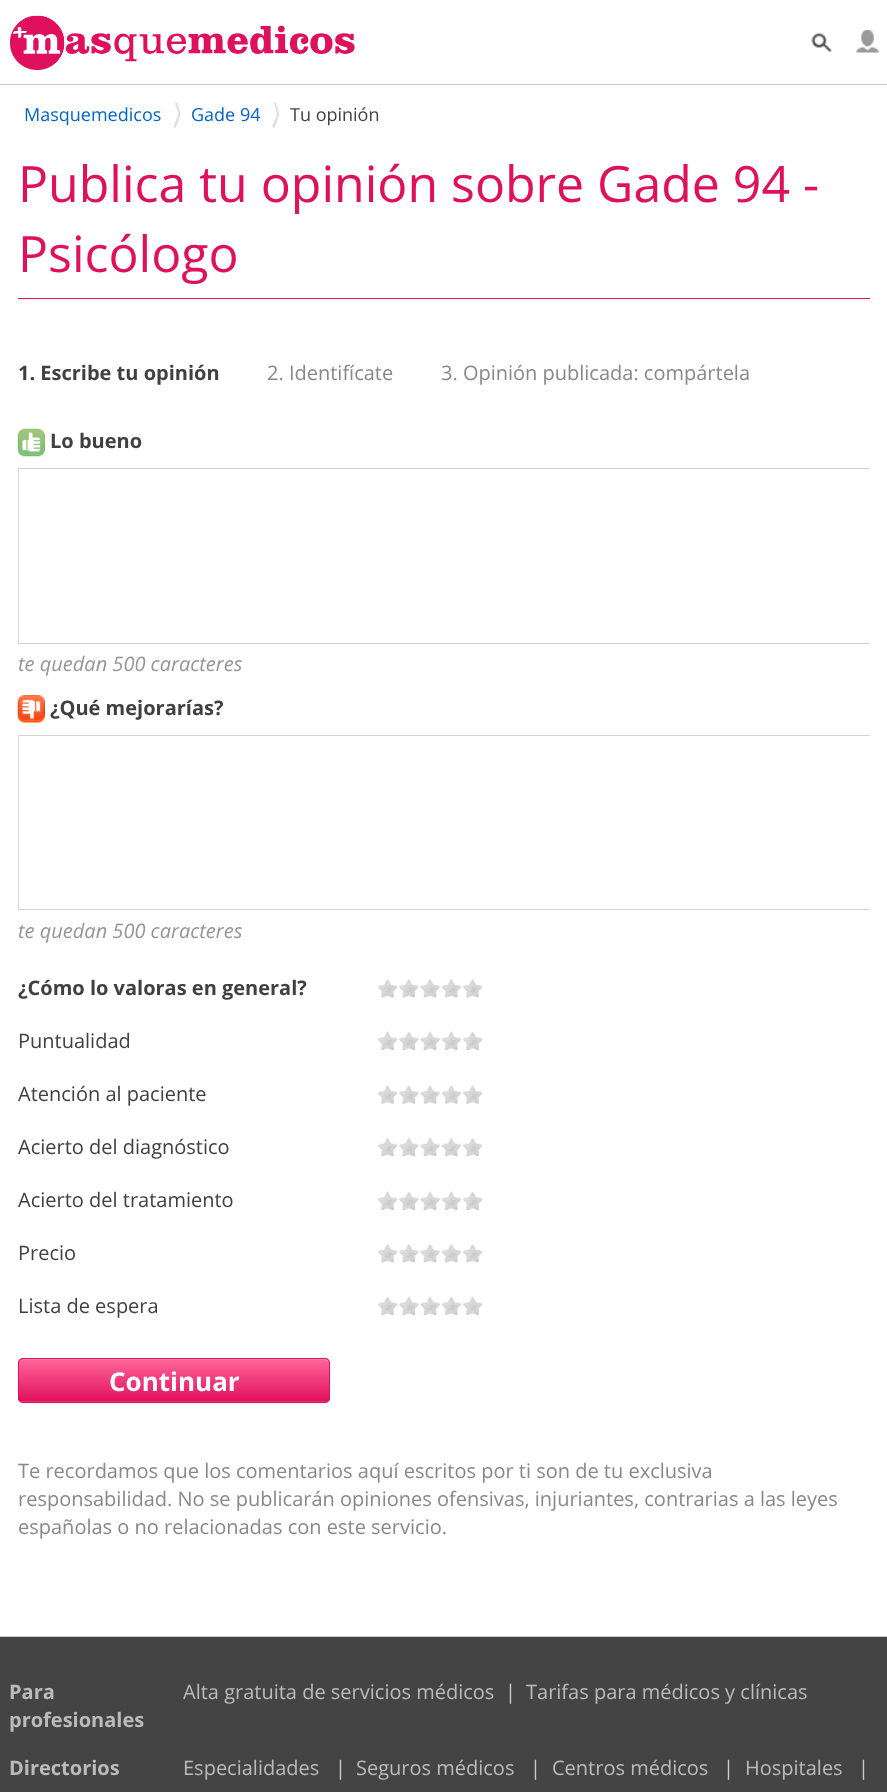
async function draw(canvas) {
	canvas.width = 887;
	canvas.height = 1792;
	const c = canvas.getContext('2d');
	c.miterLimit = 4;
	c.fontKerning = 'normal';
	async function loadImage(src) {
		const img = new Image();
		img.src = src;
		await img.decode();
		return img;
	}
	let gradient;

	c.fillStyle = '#fff';
	c.fillRect(0, 0, 887, 1792);
	c.fillStyle = '#ccc';
	c.fillRect(0, 84, 887, 1);
	c.drawImage(await loadImage('img1.png'), 10, 15, 345, 55);
	c.drawImage(await loadImage('img2.png'), 811, 32, 21, 21);
	c.drawImage(await loadImage('img3.png'), 856, 30, 23, 23);
	c.drawImage(await loadImage('img4.png'), 173, 102, 7, 26);
	c.font = '18px Open Sans';
	c.fillStyle = '#06c';
	c.fillText('Masquemedicos', 24, 121);
	c.drawImage(await loadImage('img5.png'), 272, 102, 7, 26);
	c.fillText('Gade 94', 191, 121);
	c.fillStyle = '#404040';
	c.fillText('Tu opinión', 290, 121);
	c.fillStyle = '#e0115c';
	c.fillRect(18, 298, 852, 1);
	c.font = '50px Open Sans';
	c.fillText('Publica tu opinión sobre Gade 94 -', 18, 202);
	c.fillText('Psicólogo', 18, 272);
	c.font = 'bold 20px Open Sans';
	c.fillStyle = '#404040';
	c.fillText('1. Escribe tu opinión', 18, 380);
	c.font = '20px Open Sans';
	c.fillStyle = '#888';
	c.fillText('2. Identifícate', 267, 380);
	c.fillText('3. Opinión publicada: compártela', 441, 380);
	c.drawImage(await loadImage('img6.png'), 17, 428, 28, 29);
	c.font = 'bold 20px Open Sans';
	c.fillStyle = '#404040';
	c.fillText('Lo bueno', 50, 448);
	c.save();
	c.beginPath();
	c.rect(18, 339, 852, 1227);
	c.clip();
	c.strokeStyle = '#d3d3d3';
	c.strokeRect(18.5, 468.5, 859, 175);
	c.restore();
	c.font = 'italic 20px Open Sans';
	c.fillStyle = '#959595';
	c.fillText('te quedan 500 caracteres', 18, 671);
	c.drawImage(await loadImage('img7.png'), 17, 695, 28, 28);
	c.font = 'bold 20px Open Sans';
	c.fillStyle = '#404040';
	c.fillText('¿Qué mejorarías?', 50, 715);
	c.save();
	c.beginPath();
	c.rect(18, 339, 852, 1227);
	c.clip();
	c.strokeStyle = '#d3d3d3';
	c.strokeRect(18.5, 735.5, 859, 174);
	c.restore();
	c.font = 'italic 20px Open Sans';
	c.fillStyle = '#959595';
	c.fillText('te quedan 500 caracteres', 18, 938);
	c.font = 'bold 20px Open Sans';
	c.fillStyle = '#404040';
	c.fillText('¿Cómo lo valoras en general?', 18, 995);
	c.drawImage(await loadImage('img8.png'), 377, 979, 21, 19);
	c.drawImage(await loadImage('img9.png'), 399, 979, 20, 19);
	c.drawImage(await loadImage('img10.png'), 420, 979, 20, 19);
	c.drawImage(await loadImage('img11.png'), 441, 979, 21, 19);
	c.drawImage(await loadImage('img12.png'), 462, 979, 21, 19);
	c.font = '20px Open Sans';
	c.fillText('Puntualidad', 18, 1048);
	c.drawImage(await loadImage('img13.png'), 377, 1031, 21, 19);
	c.drawImage(await loadImage('img14.png'), 399, 1031, 20, 19);
	c.drawImage(await loadImage('img15.png'), 420, 1031, 20, 19);
	c.drawImage(await loadImage('img16.png'), 441, 1031, 21, 19);
	c.drawImage(await loadImage('img17.png'), 462, 1031, 21, 19);
	c.fillText('Atención al paciente', 18, 1101);
	c.drawImage(await loadImage('img18.png'), 377, 1085, 21, 19);
	c.drawImage(await loadImage('img19.png'), 399, 1085, 20, 19);
	c.drawImage(await loadImage('img20.png'), 420, 1085, 20, 19);
	c.drawImage(await loadImage('img21.png'), 441, 1085, 21, 19);
	c.drawImage(await loadImage('img22.png'), 462, 1085, 21, 19);
	c.fillText('Acierto del diagnóstico', 18, 1154);
	c.drawImage(await loadImage('img23.png'), 377, 1138, 21, 18);
	c.drawImage(await loadImage('img24.png'), 399, 1138, 20, 18);
	c.drawImage(await loadImage('img25.png'), 420, 1137, 20, 19);
	c.drawImage(await loadImage('img26.png'), 441, 1137, 21, 19);
	c.drawImage(await loadImage('img27.png'), 462, 1138, 21, 18);
	c.fillText('Acierto del tratamiento', 18, 1207);
	c.drawImage(await loadImage('img13.png'), 377, 1191, 21, 19);
	c.drawImage(await loadImage('img14.png'), 399, 1191, 20, 19);
	c.drawImage(await loadImage('img15.png'), 420, 1191, 20, 19);
	c.drawImage(await loadImage('img16.png'), 441, 1191, 21, 19);
	c.drawImage(await loadImage('img17.png'), 462, 1191, 21, 19);
	c.fillText('Precio', 18, 1260);
	c.drawImage(await loadImage('img8.png'), 377, 1244, 21, 19);
	c.drawImage(await loadImage('img9.png'), 399, 1244, 20, 19);
	c.drawImage(await loadImage('img10.png'), 420, 1244, 20, 19);
	c.drawImage(await loadImage('img11.png'), 441, 1244, 21, 19);
	c.drawImage(await loadImage('img12.png'), 462, 1244, 21, 19);
	c.fillText('Lista de espera', 18, 1313);
	c.drawImage(await loadImage('img13.png'), 377, 1296, 21, 19);
	c.drawImage(await loadImage('img14.png'), 399, 1296, 20, 19);
	c.drawImage(await loadImage('img15.png'), 420, 1296, 20, 19);
	c.drawImage(await loadImage('img16.png'), 441, 1296, 21, 19);
	c.drawImage(await loadImage('img17.png'), 462, 1296, 21, 19);
	c.fillStyle = '#0000000d';
	c.filter = 'blur(1px)';
	c.beginPath();
	c.roundRect(18, 1359, 312, 45, 5);
	c.fill();
	c.filter = 'none';
	c.fillStyle = '#e63373';
	c.beginPath();
	c.roundRect(18, 1358, 312, 45, 5);
	c.fill();
	c.save();
	c.beginPath();
	c.roundRect(18, 1358, 312, 45, 5);
	c.clip();
	gradient = c.createLinearGradient(174, 1359, 174, 1401);
	gradient.addColorStop(0, '#f69');
	gradient.addColorStop(1, '#e0115d');
	c.fillStyle = gradient;
	c.fillRect(18, 1359, 312, 42);
	c.restore();
	c.fillStyle = '#ffffff33';
	c.beginPath();
	c.moveTo(22, 1360);
	c.lineTo(325, 1360);
	c.bezierCurveTo(327, 1360, 329, 1362, 329, 1364);
	c.bezierCurveTo(329, 1361, 328, 1359, 325, 1359);
	c.lineTo(23, 1359);
	c.lineTo(20, 1360);
	c.bezierCurveTo(19, 1361, 19, 1363, 19, 1364);
	c.bezierCurveTo(19, 1362, 20, 1360, 22, 1360);
	c.closePath();
	c.fill();
	c.beginPath();
	c.roundRect(18.5, 1358.5, 311, 44, 4.5);
	c.strokeStyle = '#e0115d';
	c.stroke();
	c.font = 'bold 26px Open Sans';
	c.fillStyle = '#fff';
	c.fillText('Continuar', 109, 1391);
	c.font = '20px Open Sans';
	c.fillStyle = '#888';
	for (const [text, x, y] of [
		['Te recordamos que los comentarios aquí escritos por ti son de tu exclusiva', 18, 1478],
		['responsabilidad. No se publicarán opiniones ofensivas, injuriantes, contrarias a las leyes', 18, 1506],
		['españolas o no relacionadas con este servicio.', 18, 1534],
	]) {
		c.fillText(text, x, y);
	}
	c.fillStyle = '#444';
	c.fillRect(0, 1637, 887, 155);
	c.fillStyle = '#ccc';
	c.fillRect(0, 1636, 887, 1);
	c.font = 'bold 20px Open Sans';
	c.fillStyle = '#bbb';
	c.fillText('Para', 9, 1699);
	c.fillText('profesionales', 9, 1727);
	c.font = '20px Open Sans';
	c.fillText('Alta gratuita de servicios médicos', 183, 1699);
	c.fillStyle = '#ccc';
	c.fillText('|', 505, 1699);
	c.fillStyle = '#bbb';
	c.fillText('Tarifas para médicos y clínicas', 526, 1699);
	c.font = 'bold 20px Open Sans';
	c.fillText('Directorios', 9, 1775);
	c.font = '20px Open Sans';
	c.fillText('Especialidades', 183, 1775);
	c.fillStyle = '#ccc';
	c.fillText('|', 335, 1775);
	c.fillStyle = '#bbb';
	c.fillText('Seguros médicos', 356, 1775);
	c.fillStyle = '#ccc';
	c.fillText('|', 530, 1775);
	c.fillStyle = '#bbb';
	c.fillText('Centros médicos', 552, 1775);
	c.fillStyle = '#ccc';
	c.fillText('|', 723, 1775);
	c.fillStyle = '#bbb';
	c.fillText('Hospitales', 745, 1775);
	c.fillStyle = '#ccc';
	c.fillText('|', 858, 1775);
}

draw(document.querySelector('canvas'));
